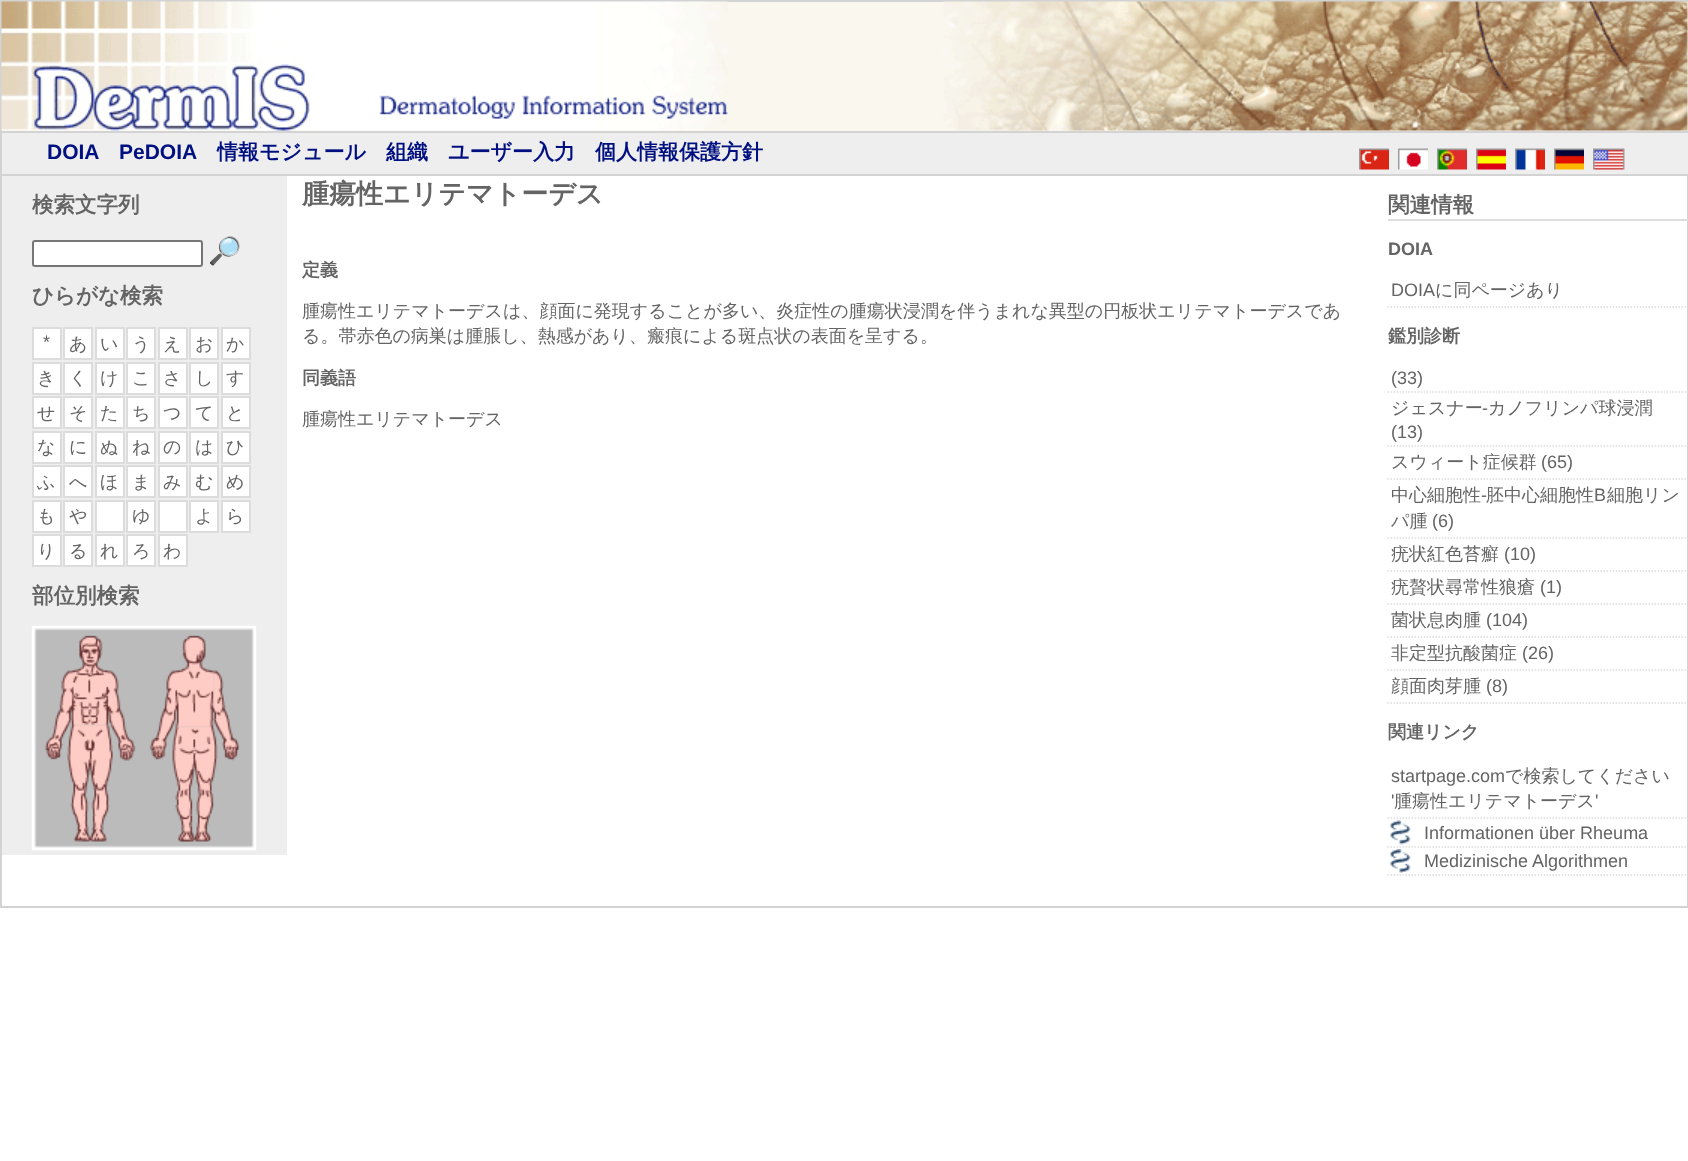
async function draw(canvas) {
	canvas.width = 1688;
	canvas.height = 1161;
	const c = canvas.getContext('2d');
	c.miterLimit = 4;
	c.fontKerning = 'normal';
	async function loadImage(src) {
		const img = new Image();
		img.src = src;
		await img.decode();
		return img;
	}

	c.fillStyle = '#fff';
	c.fillRect(0, 0, 1688, 1161);
	c.strokeStyle = '#d3d3d3';
	c.lineWidth = 2;
	c.strokeRect(1, 1, 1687, 906);
	c.fillStyle = '#eee';
	c.fillRect(2, 133, 1686, 41);
	c.fillStyle = '#faf7ee';
	c.fillRect(2, 2, 1686, 129);
	c.drawImage(await loadImage('img1.png'), 1, 1, 1687, 130);
	c.fillStyle = '#d3d3d3';
	c.fillRect(2, 131, 1686, 2);
	c.fillRect(2, 174, 1686, 2);
	c.font = 'bold 21px Liberation Sans';
	c.fillStyle = '#001080';
	c.fillText('DOIA', 47, 159);
	c.fillText('PeDOIA', 119, 159);
	c.font = 'bold 21px WenQuanYi Zen Hei';
	for (const [text, x, y] of [
		['情報モジュール', 217, 159],
		['組織', 386, 159],
		['ユーザー入力', 448, 159],
		['個人情報保護方針', 595, 159],
	]) {
		c.fillText(text, x, y);
	}
	c.drawImage(await loadImage('img2.png'), 1359, 148, 30, 22);
	c.drawImage(await loadImage('img3.png'), 1398, 148, 30, 22);
	c.drawImage(await loadImage('img4.png'), 1437, 148, 30, 22);
	c.drawImage(await loadImage('img5.png'), 1476, 148, 30, 22);
	c.drawImage(await loadImage('img6.png'), 1515, 148, 30, 22);
	c.drawImage(await loadImage('img7.png'), 1554, 148, 30, 22);
	c.drawImage(await loadImage('img8.png'), 1593, 148, 32, 22);
	c.fillStyle = '#eee';
	c.fillRect(2, 176, 285, 679);
	c.font = 'bold 21.5px WenQuanYi Zen Hei';
	c.fillStyle = '#646464';
	c.fillText('検索文字列', 32, 212);
	c.fillStyle = '#fff';
	c.beginPath();
	c.roundRect(33, 241, 169, 25, 2);
	c.fill();
	c.strokeStyle = '#767676';
	c.stroke();
	c.font = '27px Noto Color Emoji';
	c.fillStyle = '#646464';
	c.fillText('🔎', 208, 260);
	c.font = 'bold 21.5px WenQuanYi Zen Hei';
	c.fillText('ひらがな検索', 32, 303);
	c.fillStyle = '#fff';
	c.beginPath();
	c.rect(33, 328, 28, 31);
	c.fill();
	c.strokeStyle = '#dcdcdc';
	c.stroke();
	c.font = '18px Liberation Sans';
	c.fillStyle = '#646464';
	c.fillText('*', 43, 348);
	c.fillStyle = '#fff';
	c.beginPath();
	c.rect(64, 328, 28, 31);
	c.fill();
	c.stroke();
	c.font = '500 18px WenQuanYi Zen Hei';
	c.fillStyle = '#646464';
	c.fillText('あ', 69, 350);
	c.fillStyle = '#fff';
	c.beginPath();
	c.rect(96, 328, 28, 31);
	c.fill();
	c.stroke();
	c.fillStyle = '#646464';
	c.fillText('い', 100, 350);
	c.fillStyle = '#fff';
	c.beginPath();
	c.rect(127, 328, 28, 31);
	c.fill();
	c.stroke();
	c.fillStyle = '#646464';
	c.fillText('う', 132, 350);
	c.fillStyle = '#fff';
	c.beginPath();
	c.rect(159, 328, 28, 31);
	c.fill();
	c.stroke();
	c.fillStyle = '#646464';
	c.fillText('え', 163, 350);
	c.fillStyle = '#fff';
	c.beginPath();
	c.rect(190, 328, 28, 31);
	c.fill();
	c.stroke();
	c.fillStyle = '#646464';
	c.fillText('お', 195, 350);
	c.fillStyle = '#fff';
	c.beginPath();
	c.rect(222, 328, 28, 31);
	c.fill();
	c.stroke();
	c.fillStyle = '#646464';
	c.fillText('か', 226, 350);
	c.fillStyle = '#fff';
	c.beginPath();
	c.rect(33, 363, 28, 31);
	c.fill();
	c.stroke();
	c.fillStyle = '#646464';
	c.fillText('き', 37, 384);
	c.fillStyle = '#fff';
	c.beginPath();
	c.rect(64, 363, 28, 31);
	c.fill();
	c.stroke();
	c.fillStyle = '#646464';
	c.fillText('く', 69, 384);
	c.fillStyle = '#fff';
	c.beginPath();
	c.rect(96, 363, 28, 31);
	c.fill();
	c.stroke();
	c.fillStyle = '#646464';
	c.fillText('け', 100, 384);
	c.fillStyle = '#fff';
	c.beginPath();
	c.rect(127, 363, 28, 31);
	c.fill();
	c.stroke();
	c.fillStyle = '#646464';
	c.fillText('こ', 132, 384);
	c.fillStyle = '#fff';
	c.beginPath();
	c.rect(159, 363, 28, 31);
	c.fill();
	c.stroke();
	c.fillStyle = '#646464';
	c.fillText('さ', 163, 384);
	c.fillStyle = '#fff';
	c.beginPath();
	c.rect(190, 363, 28, 31);
	c.fill();
	c.stroke();
	c.fillStyle = '#646464';
	c.fillText('し', 195, 384);
	c.fillStyle = '#fff';
	c.beginPath();
	c.rect(222, 363, 28, 31);
	c.fill();
	c.stroke();
	c.fillStyle = '#646464';
	c.fillText('す', 226, 384);
	c.fillStyle = '#fff';
	c.beginPath();
	c.rect(33, 397, 28, 31);
	c.fill();
	c.stroke();
	c.fillStyle = '#646464';
	c.fillText('せ', 37, 419);
	c.fillStyle = '#fff';
	c.beginPath();
	c.rect(64, 397, 28, 31);
	c.fill();
	c.stroke();
	c.fillStyle = '#646464';
	c.fillText('そ', 69, 419);
	c.fillStyle = '#fff';
	c.beginPath();
	c.rect(96, 397, 28, 31);
	c.fill();
	c.stroke();
	c.fillStyle = '#646464';
	c.fillText('た', 100, 419);
	c.fillStyle = '#fff';
	c.beginPath();
	c.rect(127, 397, 28, 31);
	c.fill();
	c.stroke();
	c.fillStyle = '#646464';
	c.fillText('ち', 132, 419);
	c.fillStyle = '#fff';
	c.beginPath();
	c.rect(159, 397, 28, 31);
	c.fill();
	c.stroke();
	c.fillStyle = '#646464';
	c.fillText('つ', 163, 419);
	c.fillStyle = '#fff';
	c.beginPath();
	c.rect(190, 397, 28, 31);
	c.fill();
	c.stroke();
	c.fillStyle = '#646464';
	c.fillText('て', 195, 419);
	c.fillStyle = '#fff';
	c.beginPath();
	c.rect(222, 397, 28, 31);
	c.fill();
	c.stroke();
	c.fillStyle = '#646464';
	c.fillText('と', 226, 419);
	c.fillStyle = '#fff';
	c.beginPath();
	c.rect(33, 432, 28, 31);
	c.fill();
	c.stroke();
	c.fillStyle = '#646464';
	c.fillText('な', 37, 453);
	c.fillStyle = '#fff';
	c.beginPath();
	c.rect(64, 432, 28, 31);
	c.fill();
	c.stroke();
	c.fillStyle = '#646464';
	c.fillText('に', 69, 453);
	c.fillStyle = '#fff';
	c.beginPath();
	c.rect(96, 432, 28, 31);
	c.fill();
	c.stroke();
	c.fillStyle = '#646464';
	c.fillText('ぬ', 100, 453);
	c.fillStyle = '#fff';
	c.beginPath();
	c.rect(127, 432, 28, 31);
	c.fill();
	c.stroke();
	c.fillStyle = '#646464';
	c.fillText('ね', 132, 453);
	c.fillStyle = '#fff';
	c.beginPath();
	c.rect(159, 432, 28, 31);
	c.fill();
	c.stroke();
	c.fillStyle = '#646464';
	c.fillText('の', 163, 453);
	c.fillStyle = '#fff';
	c.beginPath();
	c.rect(190, 432, 28, 31);
	c.fill();
	c.stroke();
	c.fillStyle = '#646464';
	c.fillText('は', 195, 453);
	c.fillStyle = '#fff';
	c.beginPath();
	c.rect(222, 432, 28, 31);
	c.fill();
	c.stroke();
	c.fillStyle = '#646464';
	c.fillText('ひ', 226, 453);
	c.fillStyle = '#fff';
	c.beginPath();
	c.rect(33, 466, 28, 31);
	c.fill();
	c.stroke();
	c.fillStyle = '#646464';
	c.fillText('ふ', 37, 488);
	c.fillStyle = '#fff';
	c.beginPath();
	c.rect(64, 466, 28, 31);
	c.fill();
	c.stroke();
	c.fillStyle = '#646464';
	c.fillText('へ', 69, 488);
	c.fillStyle = '#fff';
	c.beginPath();
	c.rect(96, 466, 28, 31);
	c.fill();
	c.stroke();
	c.fillStyle = '#646464';
	c.fillText('ほ', 100, 488);
	c.fillStyle = '#fff';
	c.beginPath();
	c.rect(127, 466, 28, 31);
	c.fill();
	c.stroke();
	c.fillStyle = '#646464';
	c.fillText('ま', 132, 488);
	c.fillStyle = '#fff';
	c.beginPath();
	c.rect(159, 466, 28, 31);
	c.fill();
	c.stroke();
	c.fillStyle = '#646464';
	c.fillText('み', 163, 488);
	c.fillStyle = '#fff';
	c.beginPath();
	c.rect(190, 466, 28, 31);
	c.fill();
	c.stroke();
	c.fillStyle = '#646464';
	c.fillText('む', 195, 488);
	c.fillStyle = '#fff';
	c.beginPath();
	c.rect(222, 466, 28, 31);
	c.fill();
	c.stroke();
	c.fillStyle = '#646464';
	c.fillText('め', 226, 488);
	c.fillStyle = '#fff';
	c.beginPath();
	c.rect(33, 501, 28, 31);
	c.fill();
	c.stroke();
	c.fillStyle = '#646464';
	c.fillText('も', 37, 522);
	c.fillStyle = '#fff';
	c.beginPath();
	c.rect(64, 501, 28, 31);
	c.fill();
	c.stroke();
	c.fillStyle = '#646464';
	c.fillText('や', 69, 522);
	c.fillStyle = '#fff';
	c.beginPath();
	c.rect(96, 501, 28, 31);
	c.fill();
	c.stroke();
	c.beginPath();
	c.rect(127, 501, 28, 31);
	c.fill();
	c.stroke();
	c.fillStyle = '#646464';
	c.fillText('ゆ', 132, 522);
	c.fillStyle = '#fff';
	c.beginPath();
	c.rect(159, 501, 28, 31);
	c.fill();
	c.stroke();
	c.beginPath();
	c.rect(190, 501, 28, 31);
	c.fill();
	c.stroke();
	c.fillStyle = '#646464';
	c.fillText('よ', 195, 522);
	c.fillStyle = '#fff';
	c.beginPath();
	c.rect(222, 501, 28, 31);
	c.fill();
	c.stroke();
	c.fillStyle = '#646464';
	c.fillText('ら', 226, 522);
	c.fillStyle = '#fff';
	c.beginPath();
	c.rect(33, 535, 28, 31);
	c.fill();
	c.stroke();
	c.fillStyle = '#646464';
	c.fillText('り', 37, 557);
	c.fillStyle = '#fff';
	c.beginPath();
	c.rect(64, 535, 28, 31);
	c.fill();
	c.stroke();
	c.fillStyle = '#646464';
	c.fillText('る', 69, 557);
	c.fillStyle = '#fff';
	c.beginPath();
	c.rect(96, 535, 28, 31);
	c.fill();
	c.stroke();
	c.fillStyle = '#646464';
	c.fillText('れ', 100, 557);
	c.fillStyle = '#fff';
	c.beginPath();
	c.rect(127, 535, 28, 31);
	c.fill();
	c.stroke();
	c.fillStyle = '#646464';
	c.fillText('ろ', 132, 557);
	c.fillStyle = '#fff';
	c.beginPath();
	c.rect(159, 535, 28, 31);
	c.fill();
	c.stroke();
	c.fillStyle = '#646464';
	c.fillText('わ', 163, 557);
	c.font = 'bold 21.5px WenQuanYi Zen Hei';
	c.fillText('部位別検索', 32, 603);
	c.drawImage(await loadImage('img9.png'), 31, 625, 226, 226);
	c.font = 'bold 27px WenQuanYi Zen Hei';
	c.fillText('腫瘍性エリテマトーデス', 302, 203);
	c.font = 'bold 18px WenQuanYi Zen Hei';
	c.fillText('定義', 302, 276);
	c.font = '500 18px WenQuanYi Zen Hei';
	c.fillText('腫瘍性エリテマトーデスは、顔面に発現することが多い、炎症性の腫瘍状浸潤を伴うまれな異型の円板状エリテマトーデスであ', 302, 317);
	c.fillText('る。帯赤色の病巣は腫脹し、熱感があり、瘢痕による斑点状の表面を呈する。', 302, 342);
	c.font = 'bold 18px WenQuanYi Zen Hei';
	c.fillText('同義語', 302, 384);
	c.font = '500 18px WenQuanYi Zen Hei';
	c.fillText('腫瘍性エリテマトーデス', 302, 425);
	c.fillStyle = '#ddd';
	c.fillRect(1388, 219, 300, 2);
	c.font = 'bold 21.5px WenQuanYi Zen Hei';
	c.fillStyle = '#646464';
	c.fillText('関連情報', 1388, 212);
	c.font = 'bold 18px Liberation Sans';
	c.fillText('DOIA', 1388, 255);
	c.beginPath();
	c.moveTo(1387.5, 307);
	c.lineTo(1687.5, 307);
	c.strokeStyle = '#ddd';
	c.lineWidth = 1.5;
	c.setLineDash([1.5, 1.5]);
	c.stroke();
	c.font = '18px Liberation Sans';
	c.fillText('DOIA', 1391, 296);
	c.font = '500 18px WenQuanYi Zen Hei';
	c.fillText('に同ページあり', 1435, 296);
	c.font = 'bold 18px WenQuanYi Zen Hei';
	c.fillText('鑑別診断', 1388, 342);
	c.beginPath();
	c.moveTo(1387.5, 392);
	c.lineTo(1687.5, 392);
	c.stroke();
	c.font = '18px Liberation Sans';
	c.fillText('(33)', 1391, 384);
	c.beginPath();
	c.moveTo(1387.5, 446);
	c.lineTo(1687.5, 446);
	c.stroke();
	c.font = '500 18px WenQuanYi Zen Hei';
	c.fillText('ジェスナー', 1391, 414);
	c.font = '18px Liberation Sans';
	c.fillText('-', 1482, 414);
	c.font = '500 18px WenQuanYi Zen Hei';
	c.fillText('カノフリンパ球浸潤', 1488, 414);
	c.font = '18px Liberation Sans';
	c.fillText('(13)', 1391, 438);
	c.beginPath();
	c.moveTo(1387.5, 479);
	c.lineTo(1687.5, 479);
	c.stroke();
	c.font = '500 18px WenQuanYi Zen Hei';
	c.fillText('スウィート症候群', 1391, 468);
	c.font = '18px Liberation Sans';
	c.fillText('(65)', 1541, 468);
	c.beginPath();
	c.moveTo(1387.5, 538);
	c.lineTo(1687.5, 538);
	c.stroke();
	c.font = '500 18px WenQuanYi Zen Hei';
	c.fillText('中心細胞性', 1391, 501);
	c.font = '18px Liberation Sans';
	c.fillText('-', 1481, 501);
	c.font = '500 18px WenQuanYi Zen Hei';
	c.fillText('胚中心細胞性', 1486, 501);
	c.font = '18px Liberation Sans';
	c.fillText('B', 1594, 501);
	c.font = '500 18px WenQuanYi Zen Hei';
	c.fillText('細胞リン', 1607, 501);
	c.fillText('パ腫', 1391, 527);
	c.font = '18px Liberation Sans';
	c.fillText('(6)', 1432, 527);
	c.beginPath();
	c.moveTo(1387.5, 571);
	c.lineTo(1687.5, 571);
	c.stroke();
	c.font = '500 18px WenQuanYi Zen Hei';
	c.fillText('疣状紅色苔癬', 1391, 560);
	c.font = '18px Liberation Sans';
	c.fillText('(10)', 1504, 560);
	c.beginPath();
	c.moveTo(1387.5, 604);
	c.lineTo(1687.5, 604);
	c.stroke();
	c.font = '500 18px WenQuanYi Zen Hei';
	c.fillText('疣贅状尋常性狼瘡', 1391, 593);
	c.font = '18px Liberation Sans';
	c.fillText('(1)', 1540, 593);
	c.beginPath();
	c.moveTo(1387.5, 637);
	c.lineTo(1687.5, 637);
	c.stroke();
	c.font = '500 18px WenQuanYi Zen Hei';
	c.fillText('菌状息肉腫', 1391, 626);
	c.font = '18px Liberation Sans';
	c.fillText('(104)', 1486, 626);
	c.beginPath();
	c.moveTo(1387.5, 670);
	c.lineTo(1687.5, 670);
	c.stroke();
	c.font = '500 18px WenQuanYi Zen Hei';
	c.fillText('非定型抗酸菌症', 1391, 659);
	c.font = '18px Liberation Sans';
	c.fillText('(26)', 1522, 659);
	c.beginPath();
	c.moveTo(1387.5, 703);
	c.lineTo(1687.5, 703);
	c.stroke();
	c.font = '500 18px WenQuanYi Zen Hei';
	c.fillText('顔面肉芽腫', 1391, 692);
	c.font = '18px Liberation Sans';
	c.fillText('(8)', 1486, 692);
	c.font = 'bold 18px WenQuanYi Zen Hei';
	c.fillText('関連リンク', 1388, 738);
	c.beginPath();
	c.moveTo(1387.5, 818);
	c.lineTo(1687.5, 818);
	c.stroke();
	c.font = '18px Liberation Sans';
	c.fillText('startpage.com', 1391, 782);
	c.font = '500 18px WenQuanYi Zen Hei';
	c.fillText('で検索してください', 1505, 782);
	c.font = '18px Liberation Sans';
	c.fillText('\'', 1391, 807);
	c.font = '500 18px WenQuanYi Zen Hei';
	c.fillText('腫瘍性エリテマトーデス', 1394, 807);
	c.font = '18px Liberation Sans';
	c.fillText('\'', 1595, 807);
	c.drawImage(await loadImage('img10.png'), 1390, 820, 21, 25);
	c.beginPath();
	c.moveTo(1387.5, 847);
	c.lineTo(1687.5, 847);
	c.stroke();
	c.fillText('Informationen über Rheuma', 1424, 839);
	c.drawImage(await loadImage('img11.png'), 1390, 849, 21, 24);
	c.beginPath();
	c.moveTo(1387.5, 875);
	c.lineTo(1687.5, 875);
	c.stroke();
	c.fillText('Medizinische Algorithmen', 1424, 867);
}

draw(document.querySelector('canvas'));
